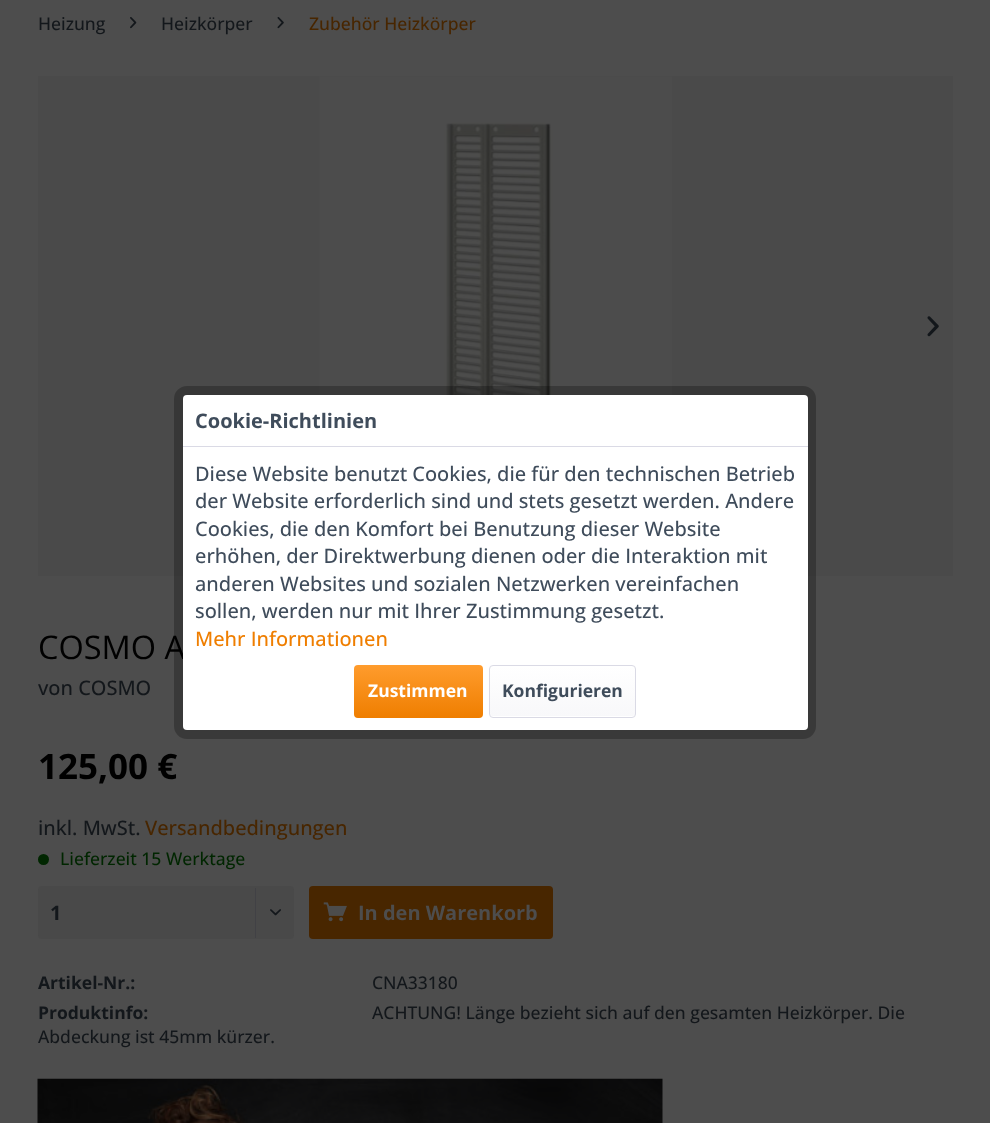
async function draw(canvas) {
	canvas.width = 990;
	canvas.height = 1123;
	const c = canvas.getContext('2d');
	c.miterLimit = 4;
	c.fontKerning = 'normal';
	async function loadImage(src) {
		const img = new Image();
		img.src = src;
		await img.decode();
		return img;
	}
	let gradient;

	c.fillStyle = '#4d4d4d';
	c.fillRect(0, 0, 990, 1123);
	c.font = '500 17.5px Open Sans';
	c.fillStyle = '#13171b';
	c.fillText('Heizung', 38, 30);
	c.drawImage(await loadImage('img1.png'), 130, 17, 7, 12);
	c.fillText('Heizkörper', 161, 30);
	c.drawImage(await loadImage('img2.png'), 277, 17, 7, 12);
	c.fillStyle = '#482600';
	c.fillText('Zubehör Heizkörper', 309, 30);
	c.fillStyle = '#4a4a4a';
	c.fillRect(38, 76, 915, 500);
	c.drawImage(await loadImage('img3.png'), 319, 76, 353, 319);
	c.drawImage(await loadImage('img4.png'), 927, 316, 12, 21);
	c.font = '32.5px Open Sans';
	c.fillStyle = '#000';
	c.fillText('COSMO A', 38, 659);
	c.font = '500 20px Open Sans';
	c.fillStyle = '#13171b';
	c.fillText('von COSMO', 38, 695);
	c.font = 'bold 35px Open Sans';
	c.fillStyle = '#000';
	c.fillText('125,00 €', 38, 779);
	c.font = '500 20px Open Sans';
	c.fillStyle = '#13171b';
	c.fillText('inkl. MwSt.', 38, 835);
	c.fillStyle = '#482600';
	c.fillText('Versandbedingungen', 145, 835);
	c.fillStyle = '#002600';
	c.beginPath();
	c.arc(43.5, 859.5, 5.5, 0, 2 * Math.PI);
	c.fill();
	c.font = '500 17.5px Open Sans';
	c.fillText('Lieferzeit 15 Werktage', 60, 865);
	c.fillStyle = '#494949';
	c.beginPath();
	c.roundRect(38, 886, 256, 53, 4);
	c.fill();
	c.font = 'bold 20px Open Sans';
	c.fillStyle = '#13171b';
	c.fillText('1', 50, 920);
	c.fillStyle = '#414145';
	c.fillRect(255, 888, 1, 50);
	c.drawImage(await loadImage('img5.png'), 270, 909, 11, 7);
	c.fillStyle = '#482600';
	c.beginPath();
	c.roundRect(309, 886, 244, 53, 4);
	c.fill();
	c.drawImage(await loadImage('img6.png'), 323, 902, 24, 20);
	c.fillStyle = '#4d4d4d';
	c.fillText('In den Warenkorb', 358, 920);
	c.font = 'bold 17.5px Open Sans';
	c.fillStyle = '#13171b';
	c.fillText('Artikel-Nr.:', 38, 989);
	c.font = '500 17.5px Open Sans';
	c.fillText('CNA33180', 372, 989);
	c.font = 'bold 17.5px Open Sans';
	c.fillText('Produktinfo:', 38, 1019);
	c.font = '500 17.5px Open Sans';
	c.fillText('ACHTUNG! Länge bezieht sich auf den gesamten Heizkörper. Die', 372, 1019);
	c.fillText('Abdeckung ist 45mm kürzer.', 38, 1043);
	c.drawImage(await loadImage('img7.png'), 37, 1078, 626, 45);
	c.beginPath();
	c.roundRect(178.5, 390.5, 633, 344, 8.5);
	c.strokeStyle = '#00000040';
	c.lineWidth = 9;
	c.stroke();
	c.fillStyle = '#fff';
	c.beginPath();
	c.roundRect(183, 395, 625, 335, 4);
	c.fill();
	c.fillStyle = '#dadae5';
	c.fillRect(183, 446, 625, 1);
	c.font = 'bold 20px Open Sans';
	c.fillStyle = '#3f4c5b';
	c.fillText('Cookie-Richtlinien', 195, 428);
	c.font = '500 20px Open Sans';
	for (const [text, x, y] of [
		['Diese Website benutzt Cookies, die für den technischen Betrieb', 195, 481],
		['der Website erforderlich sind und stets gesetzt werden. Andere', 195, 508],
		['Cookies, die den Komfort bei Benutzung dieser Website', 195, 536],
		['erhöhen, der Direktwerbung dienen oder die Interaktion mit', 195, 563],
		['anderen Websites und sozialen Netzwerken vereinfachen', 195, 591],
		['sollen, werden nur mit Ihrer Zustimmung gesetzt.', 195, 618],
	]) {
		c.fillText(text, x, y);
	}
	c.fillStyle = '#ef7e00';
	c.fillText('Mehr Informationen', 195, 646);
	gradient = c.createLinearGradient(418, 665, 418, 718);
	gradient.addColorStop(0, '#ff9c2d');
	gradient.addColorStop(1, '#ef7e00');
	c.fillStyle = gradient;
	c.beginPath();
	c.roundRect(354, 665, 129, 53, 4);
	c.fill();
	c.font = 'bold 17.5px Open Sans';
	c.fillStyle = '#fff';
	c.fillText('Zustimmen', 368, 697);
	gradient = c.createLinearGradient(563, 666, 563, 716);
	gradient.addColorStop(0, '#fff');
	gradient.addColorStop(1, '#f8f8fa');
	c.fillStyle = gradient;
	c.beginPath();
	c.roundRect(490, 666, 145, 50, 2.5);
	c.fill();
	c.beginPath();
	c.roundRect(489.5, 665.5, 146, 52, 3.5);
	c.strokeStyle = '#dadae5';
	c.lineWidth = 1;
	c.stroke();
	c.fillStyle = '#3f4c5b';
	c.fillText('Konfigurieren', 502, 697);
}

draw(document.querySelector('canvas'));
